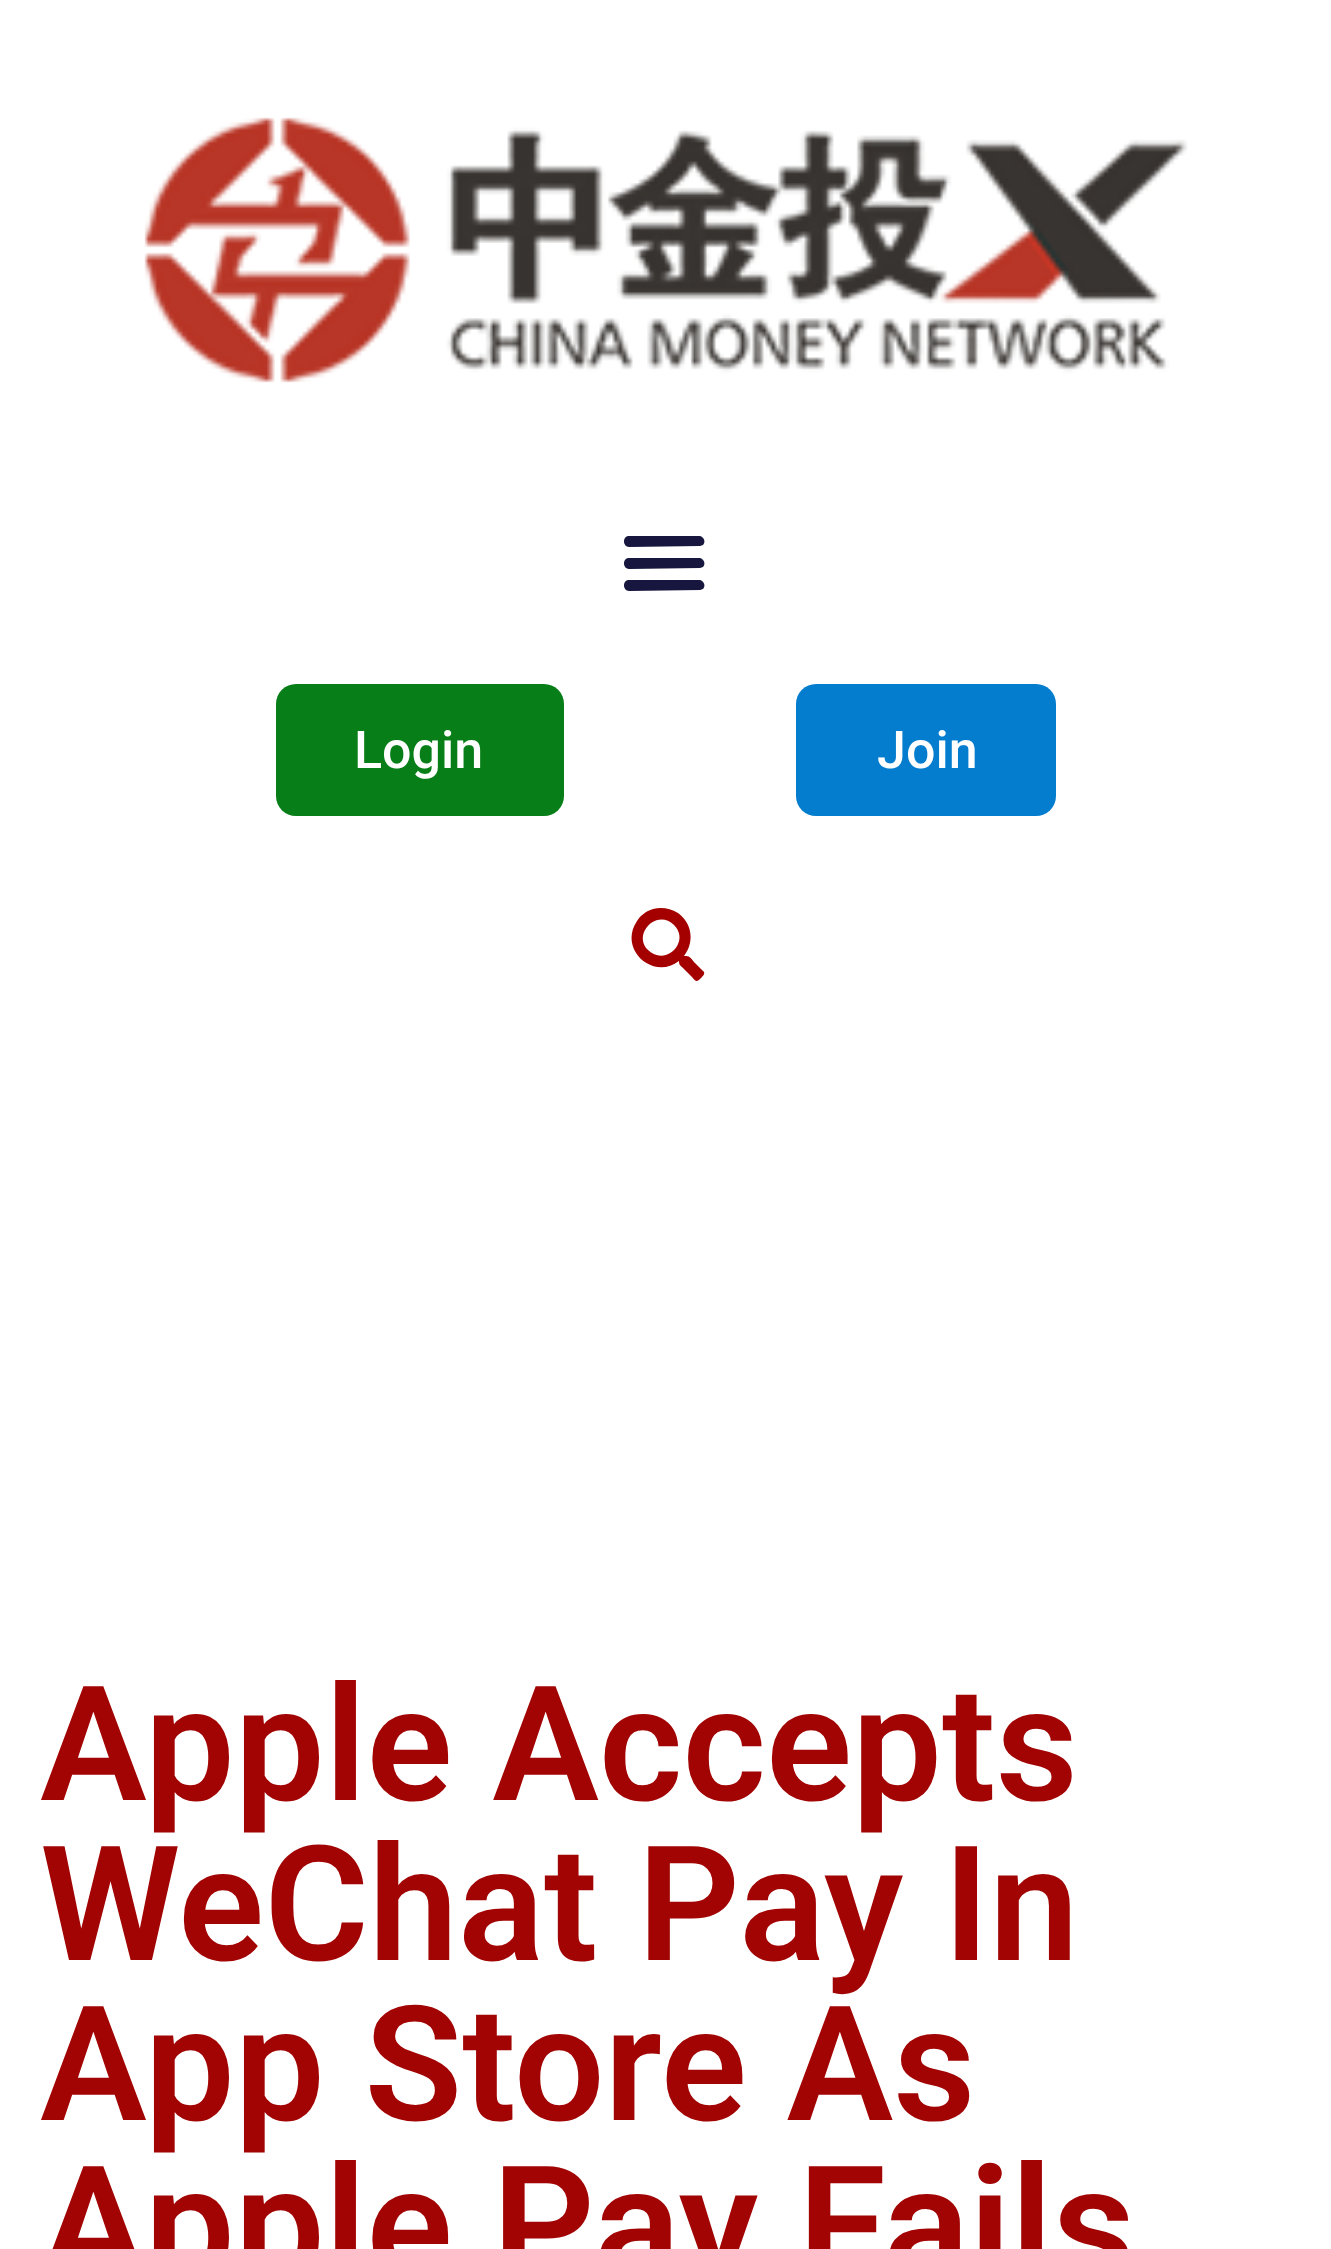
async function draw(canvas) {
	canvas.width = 1331;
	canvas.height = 2249;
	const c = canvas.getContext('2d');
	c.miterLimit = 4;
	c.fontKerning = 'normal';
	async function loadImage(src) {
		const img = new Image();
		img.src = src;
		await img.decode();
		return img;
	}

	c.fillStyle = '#fff';
	c.fillRect(0, 0, 1331, 2249);
	c.drawImage(await loadImage('img1.png'), 144, 117, 1044, 266);
	c.fillStyle = '#16163f';
	c.beginPath();
	c.moveTo(629, 547);
	c.lineTo(700, 546);
	c.lineTo(703, 545);
	c.bezierCurveTo(706, 542, 704, 537, 700, 536);
	c.lineTo(628, 536);
	c.bezierCurveTo(622, 537, 623, 547, 629, 547);
	c.closePath();
	c.moveTo(629, 569);
	c.lineTo(700, 568);
	c.lineTo(703, 567);
	c.bezierCurveTo(706, 564, 704, 559, 700, 558);
	c.lineTo(628, 558);
	c.bezierCurveTo(622, 559, 623, 569, 629, 569);
	c.closePath();
	c.moveTo(629, 591);
	c.lineTo(700, 590);
	c.lineTo(703, 589);
	c.bezierCurveTo(706, 586, 704, 581, 700, 580);
	c.lineTo(628, 580);
	c.bezierCurveTo(622, 581, 623, 591, 629, 591);
	c.closePath();
	c.fill();
	c.fillStyle = '#077e18';
	c.beginPath();
	c.roundRect(276, 684, 288, 132, 20);
	c.fill();
	c.font = '500 52px Roboto';
	c.fillStyle = '#fff';
	c.fillText('Login', 354, 768);
	c.fillStyle = '#047dcf';
	c.beginPath();
	c.roundRect(796, 684, 260, 132, 20);
	c.fill();
	c.fillStyle = '#fff';
	c.fillText('Join', 877, 768);
	c.fillStyle = '#a50000';
	c.beginPath();
	c.moveTo(703, 971);
	c.bezierCurveTo(706, 973, 703, 976, 701, 978);
	c.bezierCurveTo(697, 982, 696, 982, 692, 977);
	c.lineTo(683, 968);
	c.bezierCurveTo(680, 965, 679, 965, 679, 961);
	c.bezierCurveTo(653, 981, 618, 949, 637, 921);
	c.bezierCurveTo(640, 916, 646, 911, 653, 909);
	c.bezierCurveTo(661, 907, 670, 908, 678, 913);
	c.bezierCurveTo(692, 923, 695, 942, 684, 956);
	c.bezierCurveTo(690, 956, 690, 957, 694, 962);
	c.closePath();
	c.moveTo(648, 950);
	c.bezierCurveTo(665, 967, 691, 942, 674, 925);
	c.bezierCurveTo(657, 908, 632, 934, 648, 950);
	c.closePath();
	c.fill();
	c.font = '600 160px Roboto';
	c.fillStyle = '#a20303';
	for (const [text, x, y] of [
		['Apple Accepts', 40, 1800],
		['WeChat Pay In', 40, 1960],
		['App Store As', 40, 2120],
		['Apple Pay Fails', 40, 2280],
	]) {
		c.fillText(text, x, y);
	}
}

draw(document.querySelector('canvas'));
